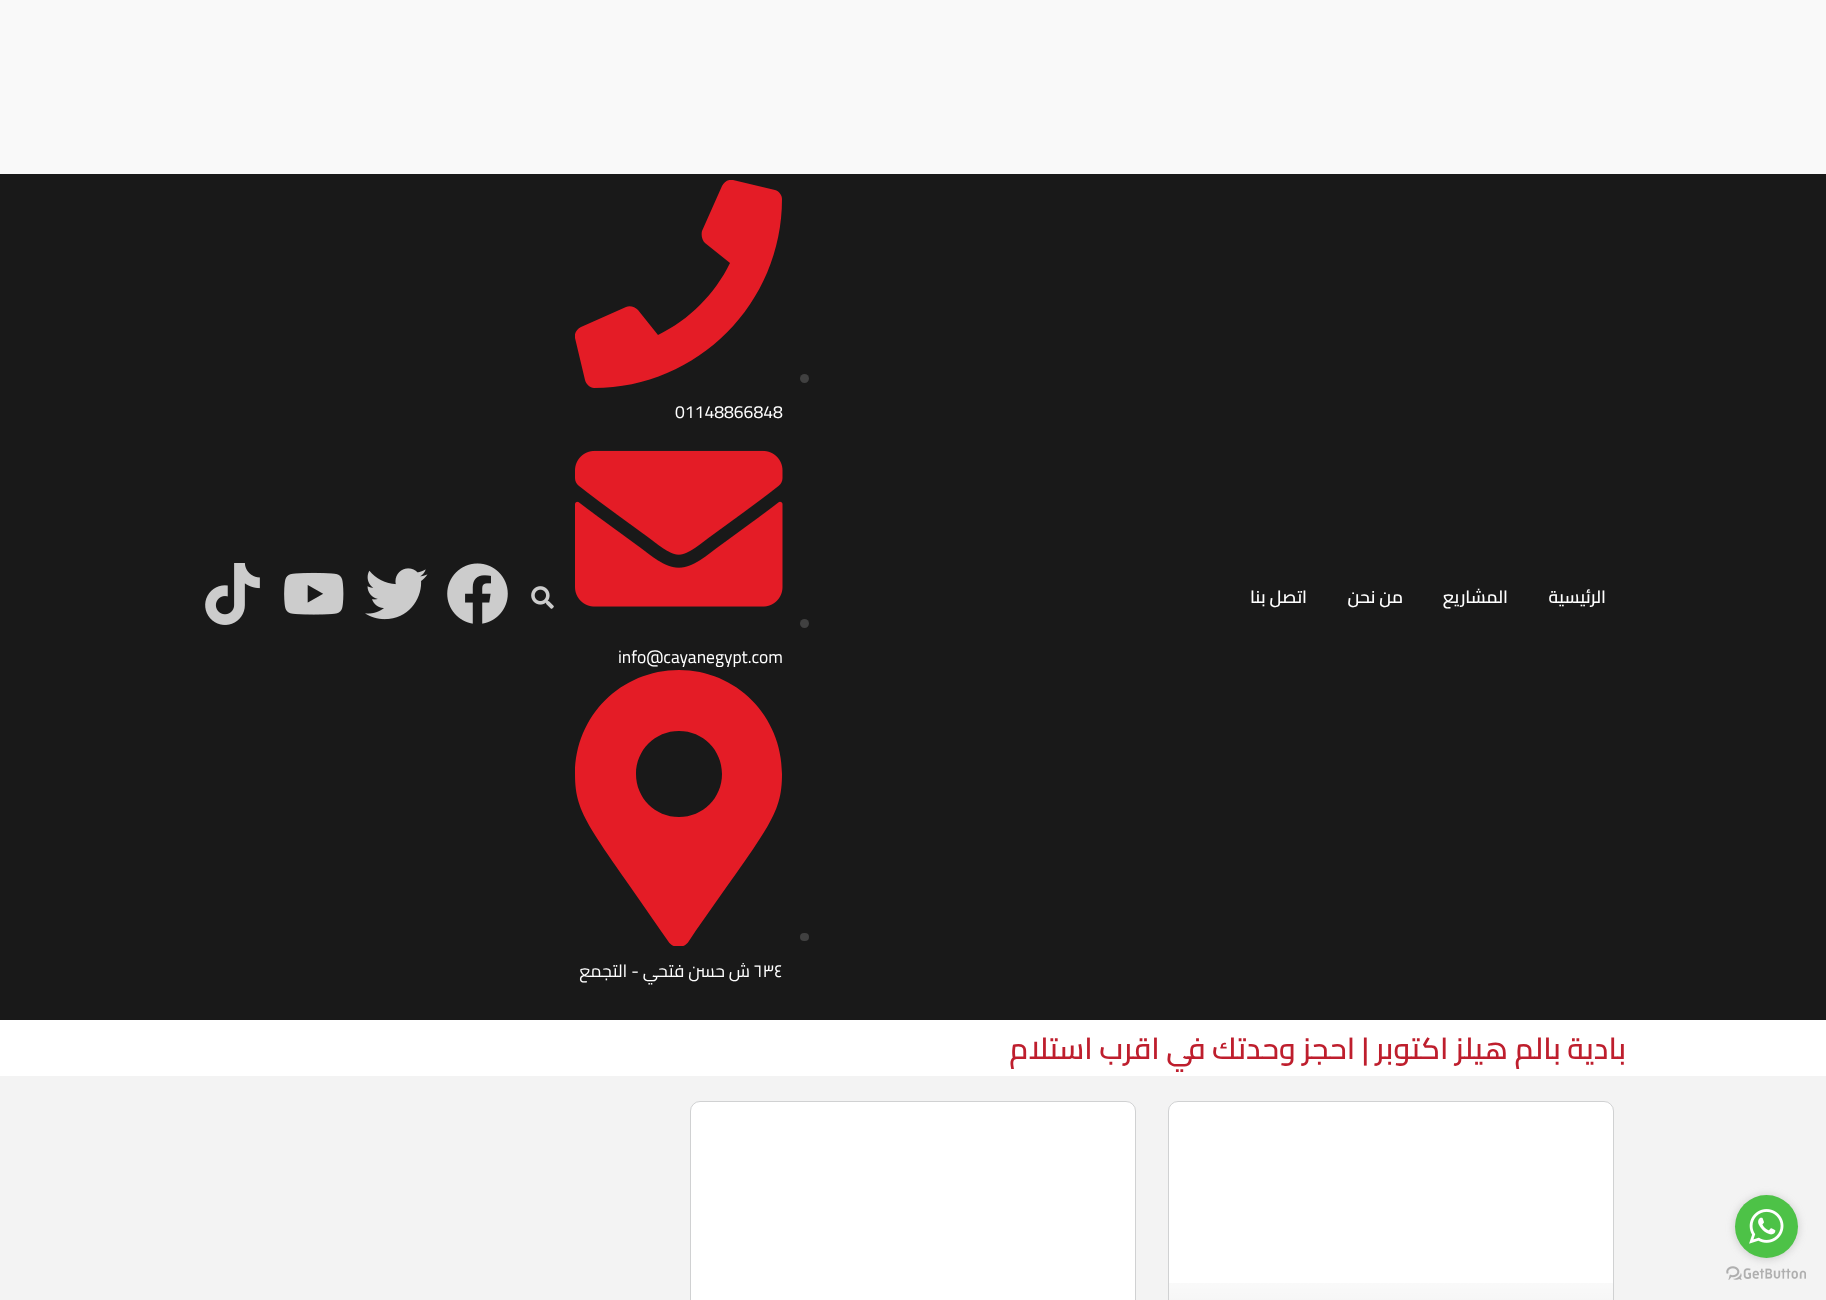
async function draw(canvas) {
	canvas.width = 1826;
	canvas.height = 1300;
	const c = canvas.getContext('2d');
	c.miterLimit = 4;
	c.fontKerning = 'normal';
	async function loadImage(src) {
		const img = new Image();
		img.src = src;
		await img.decode();
		return img;
	}
	let gradient;

	c.fillStyle = '#fff';
	c.fillRect(0, 0, 1826, 1300);
	c.fillStyle = '#f9f9f9';
	c.fillRect(0, 0, 1826, 174);
	c.fillStyle = '#191919';
	c.fillRect(0, 174, 1826, 846);
	c.direction = 'rtl';
	c.font = '600 17.5px Cairo';
	c.fillStyle = '#fff';
	for (const [text, x, y] of [
		['الرئيسية', 1606, 603],
		['المشاريع', 1508, 603],
		['من نحن', 1403, 603],
		['اتصل بنا', 1307, 603],
	]) {
		c.fillText(text, x, y);
	}
	c.fillStyle = '#404040';
	c.beginPath();
	c.arc(804.5, 378.5, 4.5, 0, 2 * Math.PI);
	c.fill();
	c.save();
	c.beginPath();
	c.rect(575, 180, 208, 208);
	c.clip();
	c.fillStyle = '#e41c26';
	c.beginPath();
	c.moveTo(775, 190);
	c.lineTo(733, 180);
	c.bezierCurveTo(728, 179, 724, 182, 722, 186);
	c.lineTo(702, 231);
	c.bezierCurveTo(701, 235, 702, 240, 705, 243);
	c.lineTo(730, 263);
	c.bezierCurveTo(715, 294, 689, 320, 658, 335);
	c.lineTo(638, 310);
	c.bezierCurveTo(635, 307, 630, 305, 626, 307);
	c.lineTo(581, 327);
	c.bezierCurveTo(577, 329, 574, 333, 575, 338);
	c.lineTo(585, 380);
	c.bezierCurveTo(586, 384, 590, 388, 594, 388);
	c.bezierCurveTo(698, 388, 782, 303, 782, 199);
	c.bezierCurveTo(782, 195, 779, 191, 775, 190);
	c.closePath();
	c.fill();
	c.restore();
	c.direction = 'ltr';
	c.font = '17.5px Cairo';
	c.fillStyle = '#fff';
	c.fillText('01148866848', 675, 418);
	c.fillStyle = '#404040';
	c.beginPath();
	c.arc(804.5, 623.5, 4.5, 0, 2 * Math.PI);
	c.fill();
	c.drawImage(await loadImage('img1.png'), 575, 450, 208, 157);
	c.fillStyle = '#fff';
	c.fillText('info@cayanegypt.com', 618, 663);
	c.fillStyle = '#404040';
	c.beginPath();
	c.roundRect(800, 933, 9, 8, 4);
	c.fill();
	c.save();
	c.beginPath();
	c.rect(575, 670, 208, 276);
	c.clip();
	c.fillStyle = '#e41c26';
	c.beginPath();
	c.moveTo(668, 941);
	c.bezierCurveTo(590, 827, 575, 816, 575, 774);
	c.bezierCurveTo(575, 716, 621, 670, 679, 670);
	c.bezierCurveTo(736, 670, 782, 716, 782, 774);
	c.bezierCurveTo(782, 816, 768, 827, 689, 941);
	c.bezierCurveTo(684, 949, 673, 949, 668, 941);
	c.closePath();
	c.moveTo(679, 817);
	c.bezierCurveTo(703, 817, 722, 798, 722, 774);
	c.bezierCurveTo(722, 750, 703, 731, 679, 731);
	c.bezierCurveTo(655, 731, 636, 750, 636, 774);
	c.bezierCurveTo(636, 798, 655, 817, 679, 817);
	c.closePath();
	c.fill();
	c.restore();
	c.fillStyle = '#fff';
	c.fillText('٦٣٤', 754, 977);
	c.direction = 'rtl';
	c.fillText('ش حسن فتحي - التجمع', 750, 977);
	c.drawImage(await loadImage('img2.png'), 531, 586, 23, 23);
	c.drawImage(await loadImage('img3.png'), 447, 563, 61, 61);
	c.drawImage(await loadImage('img4.png'), 365, 568, 63, 52);
	c.drawImage(await loadImage('img5.png'), 284, 572, 60, 43);
	c.drawImage(await loadImage('img6.png'), 205, 563, 55, 62);
	c.font = '600 30px Cairo';
	c.fillStyle = '#be1e2d';
	c.fillText('بادية بالم هيلز اكتوبر | احجز وحدتك في اقرب استلام', 1626, 1059);
	c.fillStyle = '#f3f3f3';
	c.fillRect(0, 1076, 1826, 224);
	c.fillStyle = '#fff';
	c.beginPath();
	c.roundRect(1168, 1101, 446, 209, 10);
	c.fill();
	c.beginPath();
	c.roundRect(1168.5, 1101.5, 445, 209, 9.5);
	c.strokeStyle = '#8081845e';
	c.stroke();
	gradient = c.createLinearGradient(1391, 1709, 1391, 1103);
	gradient.addColorStop(0, '#00000059');
	gradient.addColorStop(0.75, '#00000000');
	c.fillStyle = gradient;
	c.fillRect(1169, 1283, 444, 17);
	c.fillStyle = '#fff';
	c.beginPath();
	c.roundRect(690, 1101, 446, 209, 10);
	c.fill();
	c.beginPath();
	c.roundRect(690.5, 1101.5, 445, 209, 9.5);
	c.stroke();
	c.drawImage(await loadImage('img8.png'), 1726, 1266, 80, 14);
	c.fillStyle = '#88888866';
	c.filter = 'blur(4.5px)';
	c.beginPath();
	c.roundRect(1735, 1196, 63, 63, 31.5);
	c.fill();
	c.filter = 'none';
	c.fillStyle = '#4dc247';
	c.beginPath();
	c.arc(1766.5, 1226.5, 31.5, 0, 2 * Math.PI);
	c.fill();
	c.drawImage(await loadImage('img7.png'), 1749, 1209, 35, 35);
}

draw(document.querySelector('canvas'));
